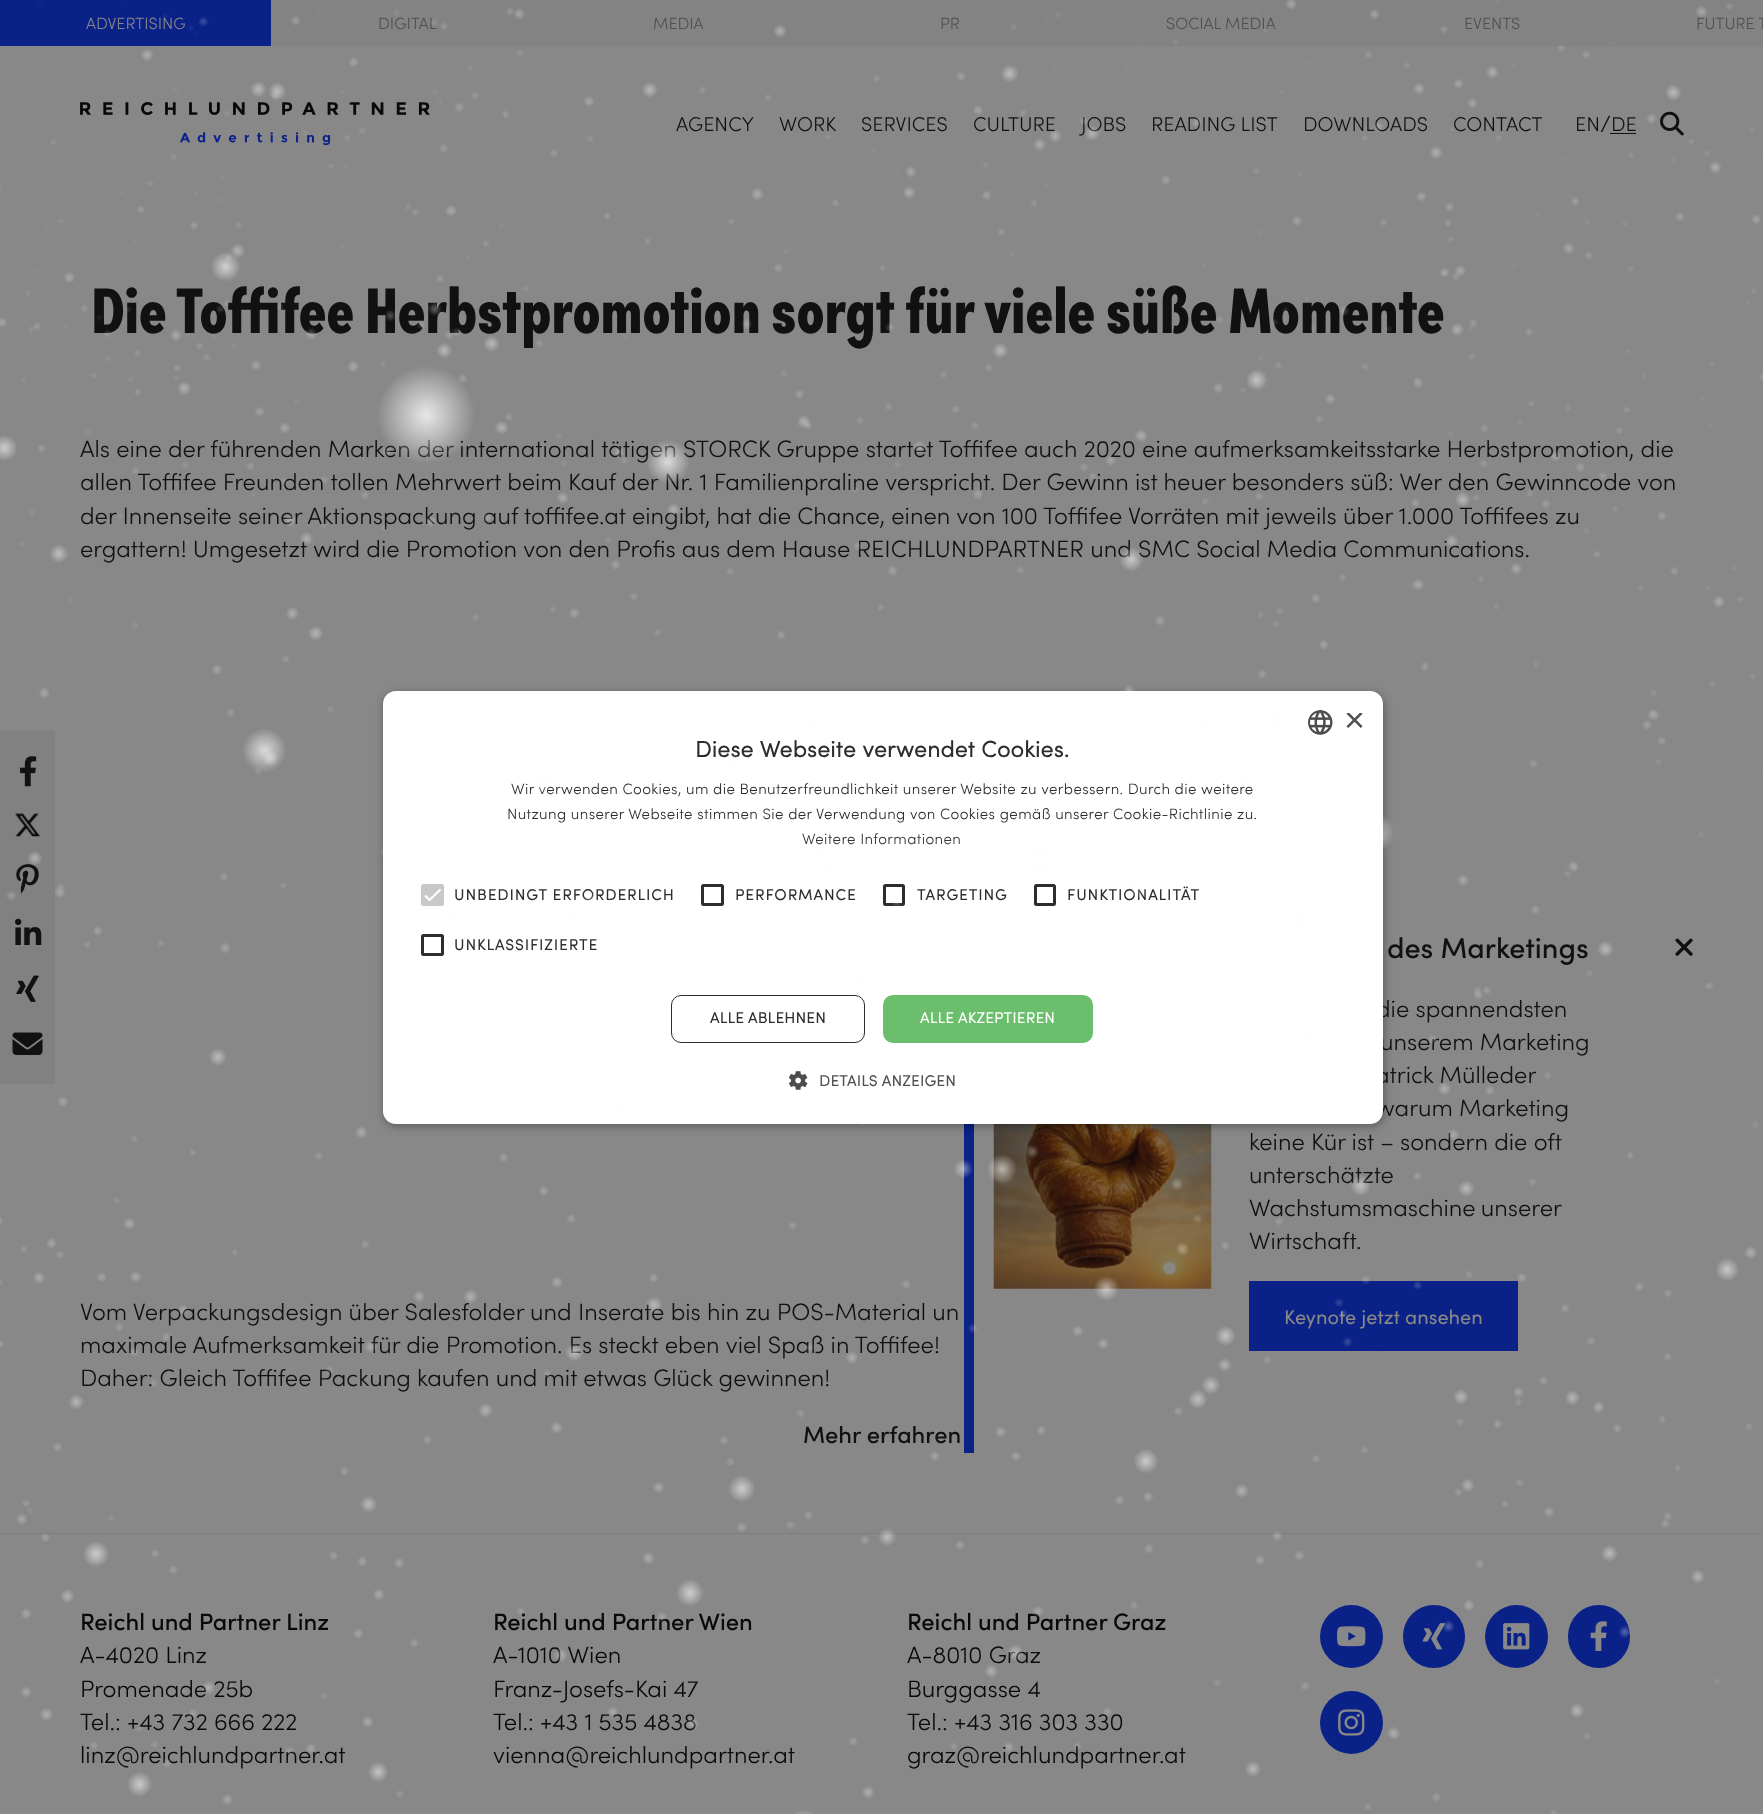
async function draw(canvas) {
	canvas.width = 1763;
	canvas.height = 1814;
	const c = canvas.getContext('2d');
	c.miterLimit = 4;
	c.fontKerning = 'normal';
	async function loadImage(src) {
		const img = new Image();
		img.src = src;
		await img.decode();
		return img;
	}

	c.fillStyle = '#888';
	c.fillRect(0, 0, 1763, 1814);
	c.fillStyle = '#838383';
	c.fillRect(271, 0, 1492, 46);
	c.fillStyle = '#0a2188';
	c.fillRect(0, 0, 271, 46);
	c.font = '300 16.25px Sofia';
	c.fillStyle = '#888';
	c.fillText('ADVERTISING', 86, 29);
	c.fillStyle = '#505050';
	for (const [text, x, y] of [
		['DIGITAL', 378, 29],
		['MEDIA', 653, 29],
		['PR', 940, 29],
		['SOCIAL MEDIA', 1166, 29],
		['EVENTS', 1464, 29],
		['FUTURE T', 1696, 29],
	]) {
		c.fillText(text, x, y);
	}
	c.drawImage(await loadImage('img2.png'), 80, 102, 350, 44);
	c.font = '300 20px Sofia';
	c.fillStyle = '#111';
	for (const [text, x, y] of [
		['AGENCY', 676, 131],
		['WORK', 779, 131],
		['SERVICES', 861, 131],
		['CULTURE', 973, 131],
		['JOBS', 1081, 131],
		['READING LIST', 1151, 131],
		['DOWNLOADS', 1303, 131],
		['CONTACT', 1453, 131],
		['EN', 1575, 131],
	]) {
		c.fillText(text, x, y);
	}
	c.font = '300 23.75px Sofia';
	c.fillText('/', 1600, 132);
	c.font = '300 20px Sofia';
	c.fillText('DE', 1611, 131);
	c.fillRect(1610, 133, 26, 1);
	c.drawImage(await loadImage('img3.png'), 1660, 111, 24, 25);
	c.font = '900 64.75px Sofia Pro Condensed';
	c.fillText('Die Toffifee Herbstpromotion sorgt für viele süße Momente', 91, 333);
	c.font = '300 23.75px Sofia';
	for (const [text, x, y] of [
		['Als eine der führenden Marken der international tätigen STORCK Gruppe startet Toffifee auch 2020 eine aufmerksamkeitsstarke Herbstpromotion, die', 80, 457],
		['allen Toffifee Freunden tollen Mehrwert beim Kauf der Nr. 1 Familienpraline verspricht. Der Gewinn ist heuer besonders süß: Wer den Gewinncode von', 80, 490],
		['der Innenseite seiner Aktionspackung auf toffifee.at eingibt, hat die Chance, einen von 100 Toffifee Vorräten mit jeweils über 1.000 Toffifees zu', 80, 524],
		['ergattern! Umgesetzt wird die Promotion von den Profis aus dem Hause REICHLUNDPARTNER und SMC Social Media Communications.', 80, 557],
		['Vom Verpackungsdesign über Salesfolder und Inserate bis hin zu POS-Material un', 80, 1320],
		['maximale Aufmerksamkeit für die Promotion. Es steckt eben viel Spaß in Toffifee!', 80, 1353],
		['Daher: Gleich Toffifee Packung kaufen und mit etwas Glück gewinnen!', 80, 1386],
	]) {
		c.fillText(text, x, y);
	}
	c.font = '500 23.75px Sofia';
	c.fillText('Mehr erfahren', 803, 1443);
	c.fillStyle = '#818181';
	c.fillRect(0, 731, 55, 353);
	c.drawImage(await loadImage('img4.png'), 20, 756, 17, 31);
	c.drawImage(await loadImage('img5.png'), 14, 813, 26, 24);
	c.drawImage(await loadImage('img6.png'), 16, 864, 23, 30);
	c.drawImage(await loadImage('img7.png'), 15, 918, 27, 27);
	c.drawImage(await loadImage('img8.png'), 16, 975, 23, 27);
	c.drawImage(await loadImage('img9.png'), 12, 1032, 31, 23);
	c.fillStyle = '#0a2188';
	c.fillRect(964, 1124, 10, 329);
	c.drawImage(await loadImage('img12.png'), 993, 1124, 219, 165);
	c.fillStyle = '#00000059';
	c.filter = 'blur(5px)';
	c.beginPath();
	c.roundRect(384, 694, 1000, 432, 13);
	c.fill();
	c.filter = 'none';
	c.font = '300 23.75px Sofia';
	c.fillStyle = '#111';
	for (const [text, x, y] of [
		['die spannendsten', 1376, 1017],
		['unserem Marketing', 1380, 1050],
		['atrick Mülleder', 1375, 1083],
		['warum Marketing', 1376, 1116],
	]) {
		c.fillText(text, x, y);
	}
	c.fillStyle = '#fff';
	c.beginPath();
	c.roundRect(383, 691, 1000, 433, 13);
	c.fill();
	c.drawImage(await loadImage('img10.png'), 1308, 710, 25, 25);
	c.save();
	c.beginPath();
	c.rect(1345, 713, 19, 18);
	c.clip();
	c.font = '36px Liberation Sans';
	c.fillStyle = '#505050';
	c.fillText('×', 1344, 732);
	c.restore();
	c.letterSpacing = '0.5px';
	c.font = 'bold 22.5px Sofia';
	c.fillStyle = '#2d2d2d';
	c.fillText('Diese Webseite verwendet Cookies.', 695, 757);
	c.letterSpacing = '0.38px';
	c.font = '300 15px Sofia';
	c.fillText('Wir verwenden Cookies, um die Benutzerfreundlichkeit unserer Website zu verbessern. Durch die weitere', 511, 794);
	c.fillText('Nutzung unserer Webseite stimmen Sie der Verwendung von Cookies gemäß unserer Cookie-Richtlinie zu.', 507, 819);
	c.fillStyle = '#333';
	c.fillText('Weitere Informationen', 802, 844);
	c.fillStyle = '#c8c8c8';
	c.beginPath();
	c.roundRect(421, 884, 23, 22, 2.5);
	c.fill();
	c.beginPath();
	c.moveTo(425, 895.5);
	c.lineTo(429.5, 900);
	c.lineTo(440.5, 889.5);
	c.strokeStyle = '#fff';
	c.lineWidth = 2.3;
	c.stroke();
	c.letterSpacing = '1.25px';
	c.font = 'bold 15px Sofia';
	c.fillStyle = '#2d2d2d';
	c.fillText('UNBEDINGT ERFORDERLICH', 454, 900);
	c.beginPath();
	c.roundRect(702.5, 885.5, 20, 19, 1);
	c.strokeStyle = '#2d2d2d';
	c.lineWidth = 3;
	c.stroke();
	c.fillText('PERFORMANCE', 735, 900);
	c.beginPath();
	c.roundRect(884.5, 885.5, 19, 19, 1);
	c.stroke();
	c.fillText('TARGETING', 917, 900);
	c.beginPath();
	c.roundRect(1035.5, 885.5, 19, 19, 1);
	c.stroke();
	c.fillText('FUNKTIONALITÄT', 1067, 900);
	c.beginPath();
	c.roundRect(422.5, 935.5, 20, 19, 1);
	c.stroke();
	c.fillText('UNKLASSIFIZIERTE', 454, 950);
	c.beginPath();
	c.roundRect(671.5, 995.5, 193, 47, 9.5);
	c.lineWidth = 1;
	c.stroke();
	c.letterSpacing = '0.5px';
	c.fillText('ALLE ABLEHNEN', 710, 1023);
	c.fillStyle = '#6bbe6b';
	c.beginPath();
	c.roundRect(883, 995, 210, 48, 10);
	c.fill();
	c.fillStyle = '#fff';
	c.fillText('ALLE AKZEPTIEREN', 920, 1023);
	c.drawImage(await loadImage('img11.png'), 789, 1071, 19, 19);
	c.fillStyle = '#505050';
	c.fillText('DETAILS ANZEIGEN', 819, 1086);
	c.letterSpacing = '0px';
	c.font = '500 28.75px Sofia';
	c.fillStyle = '#111';
	c.fillText('des Marketings', 1387, 958);
	c.font = '300 23.75px Sofia';
	c.fillText('keine Kür ist – sondern die oft', 1249, 1150);
	c.fillText('unterschätzte', 1249, 1183);
	c.wordSpacing = '-1px';
	c.fillText('Wachstumsmaschine unserer', 1249, 1216);
	c.wordSpacing = '0px';
	c.fillText('Wirtschaft.', 1249, 1249);
	c.fillStyle = '#0a2188';
	c.fillRect(1249, 1281, 269, 70);
	c.font = '20px Sofia';
	c.fillStyle = '#888';
	c.fillText('Keynote jetzt ansehen', 1284, 1324);
	c.drawImage(await loadImage('img13.png'), 1675, 938, 18, 18);
	c.fillStyle = '#7e7e7e';
	c.fillRect(0, 1533, 1763, 1);
	c.font = '500 23.75px Sofia';
	c.fillStyle = '#090909';
	c.fillText('Reichl und Partner Linz', 80, 1630);
	c.font = '300 23.75px Sofia';
	for (const [text, x, y] of [
		['A-4020 Linz', 80, 1663],
		['Promenade 25b', 80, 1697],
		['Tel.: +43 732 666 222', 80, 1730],
		['linz@reichlundpartner.at', 80, 1763],
	]) {
		c.fillText(text, x, y);
	}
	c.font = '500 23.75px Sofia';
	c.fillText('Reichl und Partner Wien', 493, 1630);
	c.font = '300 23.75px Sofia';
	for (const [text, x, y] of [
		['A-1010 Wien', 493, 1663],
		['Franz-Josefs-Kai 47', 493, 1697],
		['Tel.: +43 1 535 4838', 493, 1730],
		['vienna@reichlundpartner.at', 493, 1763],
	]) {
		c.fillText(text, x, y);
	}
	c.font = '500 23.75px Sofia';
	c.fillText('Reichl und Partner Graz', 907, 1630);
	c.font = '300 23.75px Sofia';
	for (const [text, x, y] of [
		['A-8010 Graz', 907, 1663],
		['Burggasse 4', 907, 1697],
		['Tel.: +43 316 303 330', 907, 1730],
		['graz@reichlundpartner.at', 907, 1763],
	]) {
		c.fillText(text, x, y);
	}
	c.fillStyle = '#0a2188';
	c.beginPath();
	c.arc(1351.5, 1636.5, 31.5, 0, 2 * Math.PI);
	c.fill();
	c.drawImage(await loadImage('img14.png'), 1337, 1626, 29, 21);
	c.beginPath();
	c.roundRect(1403, 1605, 62, 63, 31);
	c.fill();
	c.drawImage(await loadImage('img15.png'), 1422, 1623, 23, 27);
	c.beginPath();
	c.arc(1516.5, 1636.5, 31.5, 0, 2 * Math.PI);
	c.fill();
	c.drawImage(await loadImage('img16.png'), 1503, 1623, 27, 27);
	c.beginPath();
	c.roundRect(1568, 1605, 62, 63, 31);
	c.fill();
	c.drawImage(await loadImage('img17.png'), 1590, 1621, 17, 30);
	c.beginPath();
	c.arc(1351.5, 1722.5, 31.5, 0, 2 * Math.PI);
	c.fill();
	c.drawImage(await loadImage('img18.png'), 1338, 1709, 27, 27);
	c.drawImage(await loadImage('img1.png'), 0, 0, 1763, 1814);
}

draw(document.querySelector('canvas'));
